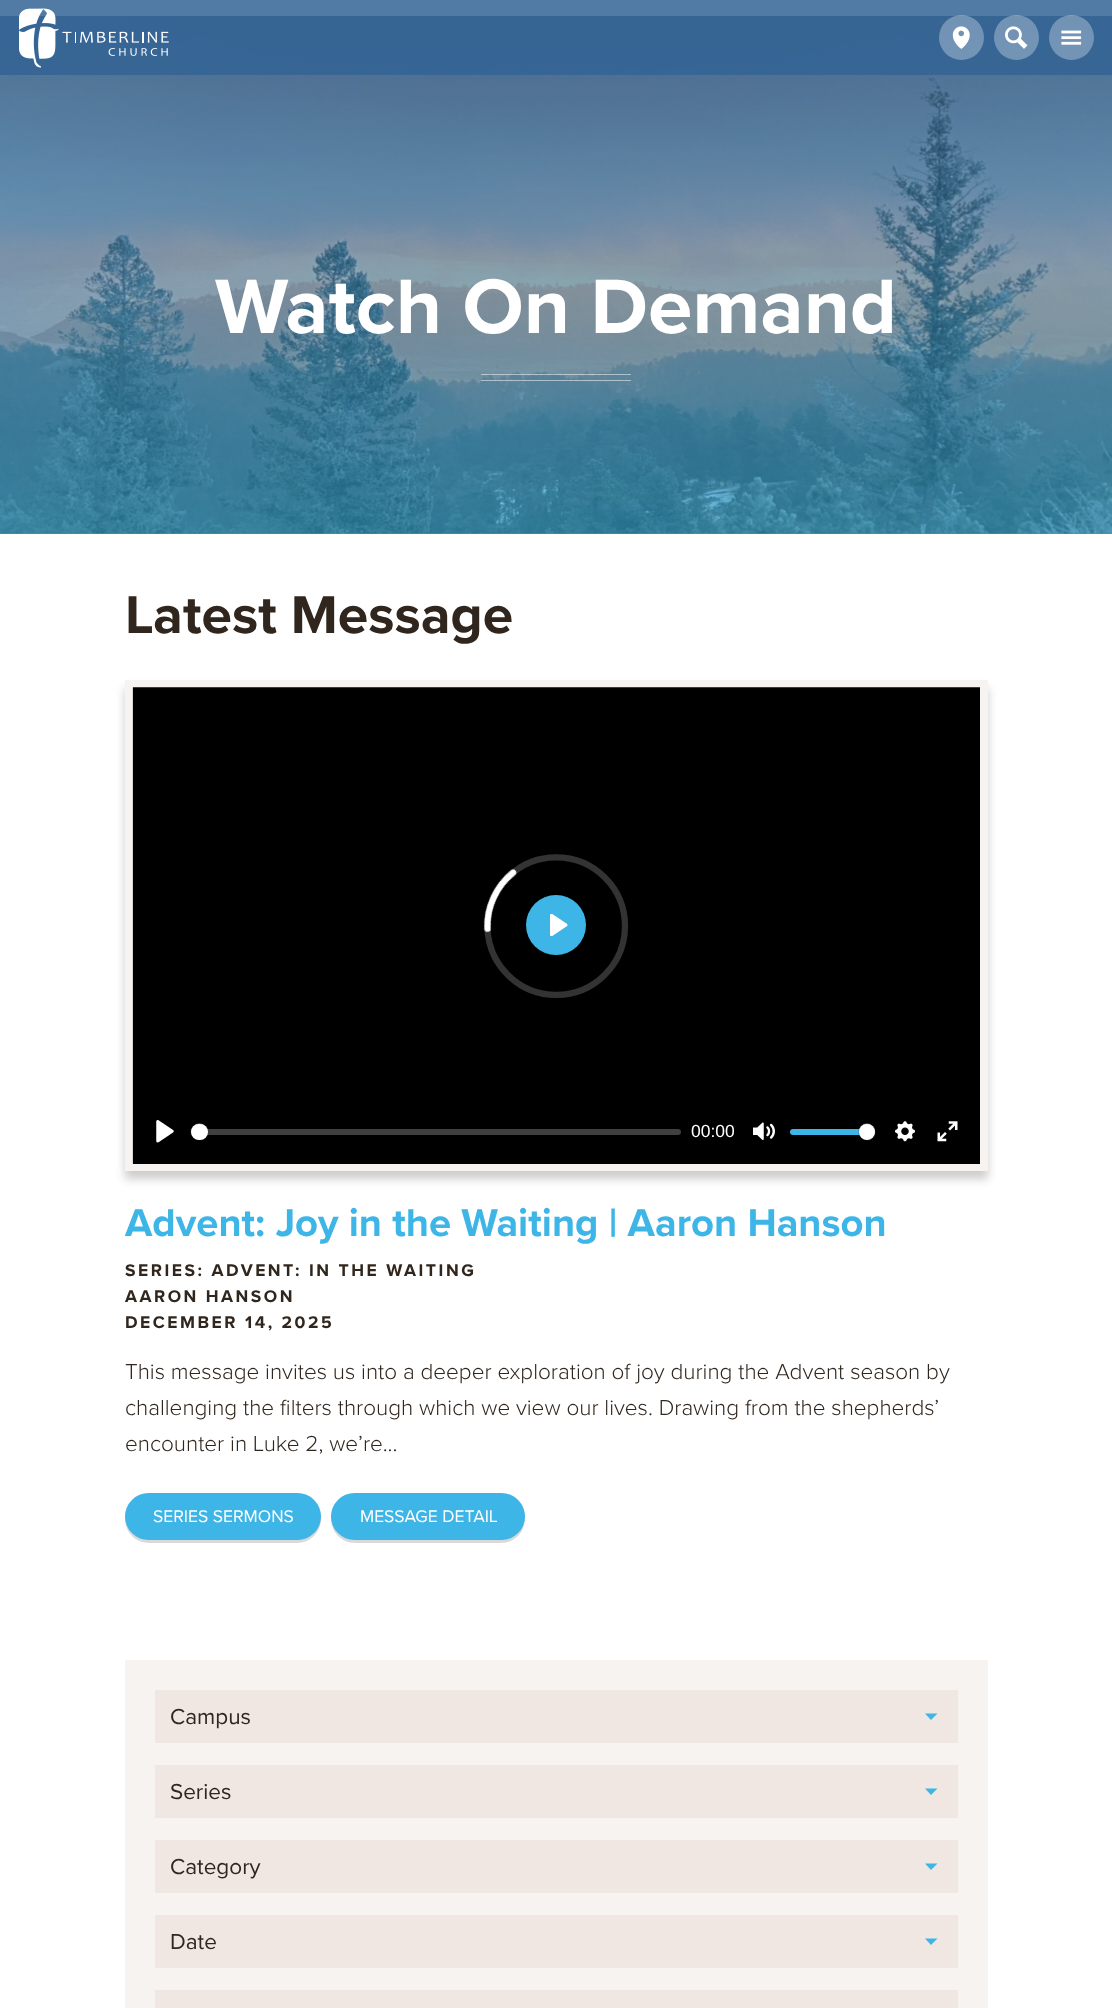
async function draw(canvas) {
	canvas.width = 1112;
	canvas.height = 2008;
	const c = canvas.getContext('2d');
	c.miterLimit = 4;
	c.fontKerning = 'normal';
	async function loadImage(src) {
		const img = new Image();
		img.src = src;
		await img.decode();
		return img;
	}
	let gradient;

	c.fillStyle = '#fff';
	c.fillRect(0, 0, 1112, 2008);
	c.fillStyle = '#326495';
	c.fillRect(0, 533, 1112, 1);
	c.drawImage(await loadImage('img5.png'), 0, 16, 1112, 518);
	gradient = c.createLinearGradient(556, 16, 556, 534);
	gradient.addColorStop(0, '#32649599');
	gradient.addColorStop(1, '#3db5e699');
	c.fillStyle = gradient;
	c.fillRect(0, 16, 1112, 518);
	c.fillStyle = '#326495d9';
	c.fillRect(0, 0, 1112, 75);
	c.drawImage(await loadImage('img1.png'), 19, 8, 150, 60);
	c.fillStyle = '#ffffff4d';
	c.beginPath();
	c.arc(961.5, 37.5, 22.5, 0, 2 * Math.PI);
	c.fill();
	c.drawImage(await loadImage('img2.png'), 952, 26, 18, 23);
	c.beginPath();
	c.arc(1016.5, 37.5, 22.5, 0, 2 * Math.PI);
	c.fill();
	c.drawImage(await loadImage('img3.png'), 1005, 26, 23, 23);
	c.beginPath();
	c.arc(1071.5, 37.5, 22.5, 0, 2 * Math.PI);
	c.fill();
	c.drawImage(await loadImage('img4.png'), 1061, 30, 21, 15);
	c.font = 'bold 80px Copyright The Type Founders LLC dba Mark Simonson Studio';
	c.fillStyle = '#fff';
	c.fillText('Watch On Demand', 215, 333);
	c.fillStyle = '#ffffff80';
	c.fillRect(481, 374, 150, 1);
	c.fillRect(481, 380, 150, 1);
	c.font = 'bold 55px Copyright The Type Founders LLC dba Mark Simonson Studio';
	c.fillStyle = '#30261d';
	c.fillText('Latest Message', 125, 633);
	c.fillStyle = '#00000033';
	c.filter = 'blur(5px)';
	c.beginPath();
	c.rect(125, 688, 863, 491);
	c.fill();
	c.filter = 'none';
	c.fillStyle = '#f7f3f0';
	c.fillRect(125, 680, 863, 491);
	c.fillStyle = '#000';
	c.fillRect(133, 1163, 847, 1);
	c.drawImage(await loadImage('img6.png'), 132, 687, 848, 477);
	c.fillStyle = '#3db5e6';
	c.beginPath();
	c.arc(556, 925, 30, 0, 2 * Math.PI);
	c.fill();
	c.drawImage(await loadImage('img7.png'), 550, 914, 18, 22);
	gradient = c.createLinearGradient(556, 1068, 556, 1164);
	gradient.addColorStop(0, '#00000000');
	gradient.addColorStop(1, '#000000b3');
	c.fillStyle = gradient;
	c.fillRect(190, 1123, 686, 18);
	c.drawImage(await loadImage('img8.png'), 156, 1120, 18, 23);
	c.save();
	c.beginPath();
	c.moveTo(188, 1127);
	c.lineTo(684, 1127);
	c.lineTo(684, 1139);
	c.lineTo(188, 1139);
	c.closePath();
	c.moveTo(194, 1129);
	c.lineTo(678, 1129);
	c.bezierCurveTo(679.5, 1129, 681, 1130.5, 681, 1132);
	c.bezierCurveTo(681, 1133.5, 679.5, 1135, 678, 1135);
	c.lineTo(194, 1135);
	c.bezierCurveTo(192.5, 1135, 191, 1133.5, 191, 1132);
	c.bezierCurveTo(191, 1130.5, 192.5, 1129, 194, 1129);
	c.closePath();
	c.clip('evenodd');
	c.fillStyle = '#00000026';
	c.filter = 'blur(0.5px)';
	c.beginPath();
	c.roundRect(191, 1130, 490, 6, 3);
	c.fill();
	c.filter = 'none';
	c.restore();
	c.fillStyle = '#ffffff40';
	c.beginPath();
	c.roundRect(191, 1129, 490, 6, 3);
	c.fill();
	c.beginPath();
	c.roundRect(190.5, 1123.5, 18, 17, 8.5);
	c.strokeStyle = '#23292f33';
	c.stroke();
	c.fillStyle = '#00000026';
	c.filter = 'blur(0.5px)';
	c.beginPath();
	c.roundRect(191, 1125, 17, 16, 8);
	c.fill();
	c.filter = 'none';
	c.fillStyle = '#fff';
	c.beginPath();
	c.roundRect(191, 1124, 17, 16, 8);
	c.fill();
	c.font = '17.5px Liberation Sans';
	c.fillText('00:00', 691, 1137);
	c.drawImage(await loadImage('img9.png'), 753, 1122, 22, 18);
	c.fillStyle = '#3db5e6';
	c.beginPath();
	c.roundRect(790, 1129, 85, 6, 3);
	c.fill();
	c.beginPath();
	c.arc(867, 1132, 8.5, 0, 2 * Math.PI);
	c.stroke();
	c.fillStyle = '#00000026';
	c.filter = 'blur(0.5px)';
	c.beginPath();
	c.roundRect(859, 1125, 16, 16, 8);
	c.fill();
	c.filter = 'none';
	c.fillStyle = '#fff';
	c.beginPath();
	c.arc(867, 1132, 8, 0, 2 * Math.PI);
	c.fill();
	c.drawImage(await loadImage('img10.png'), 895, 1121, 20, 21);
	c.drawImage(await loadImage('img11.png'), 937, 1121, 21, 21);
	c.font = 'bold 40px Copyright The Type Founders LLC dba Mark Simonson Studio';
	c.fillStyle = '#3db5e6';
	c.fillText('Advent: Joy in the Waiting | Aaron Hanson', 125, 1236);
	c.letterSpacing = '2.5px';
	c.font = 'bold 17.5px Copyright The Type Founders LLC dba Mark Simonson Studio';
	c.fillStyle = '#30261d';
	for (const [text, x, y] of [
		['SERIES: ADVENT: IN THE WAITING', 125, 1276],
		['AARON HANSON', 125, 1302],
		['DECEMBER 14, 2025', 125, 1328],
	]) {
		c.fillText(text, x, y);
	}
	c.letterSpacing = '0px';
	c.font = '300 22.5px Copyright The Type Founders LLC dba Mark Simonson Studio';
	for (const [text, x, y] of [
		['This message invites us into a deeper exploration of joy during the Advent season by', 125, 1379],
		['challenging the filters through which we view our lives. Drawing from the shepherds’', 125, 1415],
		['encounter in Luke 2, we’re...', 125, 1451],
	]) {
		c.fillText(text, x, y);
	}
	c.fillStyle = '#00000026';
	c.filter = 'blur(0.5px)';
	c.beginPath();
	c.roundRect(125, 1495, 196, 48, 24);
	c.fill();
	c.filter = 'none';
	c.fillStyle = '#3db5e6';
	c.beginPath();
	c.roundRect(125, 1493, 196, 47, 23.5);
	c.fill();
	c.font = '17.5px Copyright The Type Founders LLC dba Mark Simonson Studio';
	c.fillStyle = '#fff';
	c.fillText('SERIES SERMONS', 153, 1522);
	c.fillStyle = '#00000026';
	c.filter = 'blur(0.5px)';
	c.beginPath();
	c.roundRect(331, 1495, 194, 48, 24);
	c.fill();
	c.filter = 'none';
	c.fillStyle = '#3db5e6';
	c.beginPath();
	c.roundRect(331, 1493, 194, 47, 23.5);
	c.fill();
	c.fillStyle = '#fff';
	c.fillText('MESSAGE DETAIL', 360, 1522);
	c.fillStyle = '#f7f3f0';
	c.fillRect(125, 1660, 863, 348);
	c.fillStyle = '#f0e7e2';
	c.fillRect(155, 1690, 803, 53);
	c.font = '22.5px Copyright The Type Founders LLC dba Mark Simonson Studio';
	c.fillStyle = '#30261d';
	c.fillText('Campus', 170, 1724);
	c.fillStyle = '#3db5e6';
	c.beginPath();
	c.moveTo(925, 1713.5);
	c.lineTo(931, 1720);
	c.lineTo(937.5, 1713.5);
	c.closePath();
	c.fill();
	c.fillStyle = '#f0e7e2';
	c.fillRect(155, 1765, 803, 53);
	c.fillStyle = '#30261d';
	c.fillText('Series', 170, 1799);
	c.fillStyle = '#3db5e6';
	c.beginPath();
	c.moveTo(925, 1788.5);
	c.lineTo(931, 1795);
	c.lineTo(937.5, 1788.5);
	c.closePath();
	c.fill();
	c.fillStyle = '#f0e7e2';
	c.fillRect(155, 1840, 803, 53);
	c.fillStyle = '#30261d';
	c.fillText('Category', 170, 1874);
	c.fillStyle = '#3db5e6';
	c.beginPath();
	c.moveTo(925, 1863.5);
	c.lineTo(931, 1870);
	c.lineTo(937.5, 1863.5);
	c.closePath();
	c.fill();
	c.fillStyle = '#f0e7e2';
	c.fillRect(155, 1915, 803, 53);
	c.fillStyle = '#30261d';
	c.fillText('Date', 170, 1949);
	c.fillStyle = '#3db5e6';
	c.beginPath();
	c.moveTo(925, 1938.5);
	c.lineTo(931, 1945);
	c.lineTo(937.5, 1938.5);
	c.closePath();
	c.fill();
	c.fillStyle = '#f0e7e2';
	c.fillRect(155, 1990, 803, 18);
}

draw(document.querySelector('canvas'));
